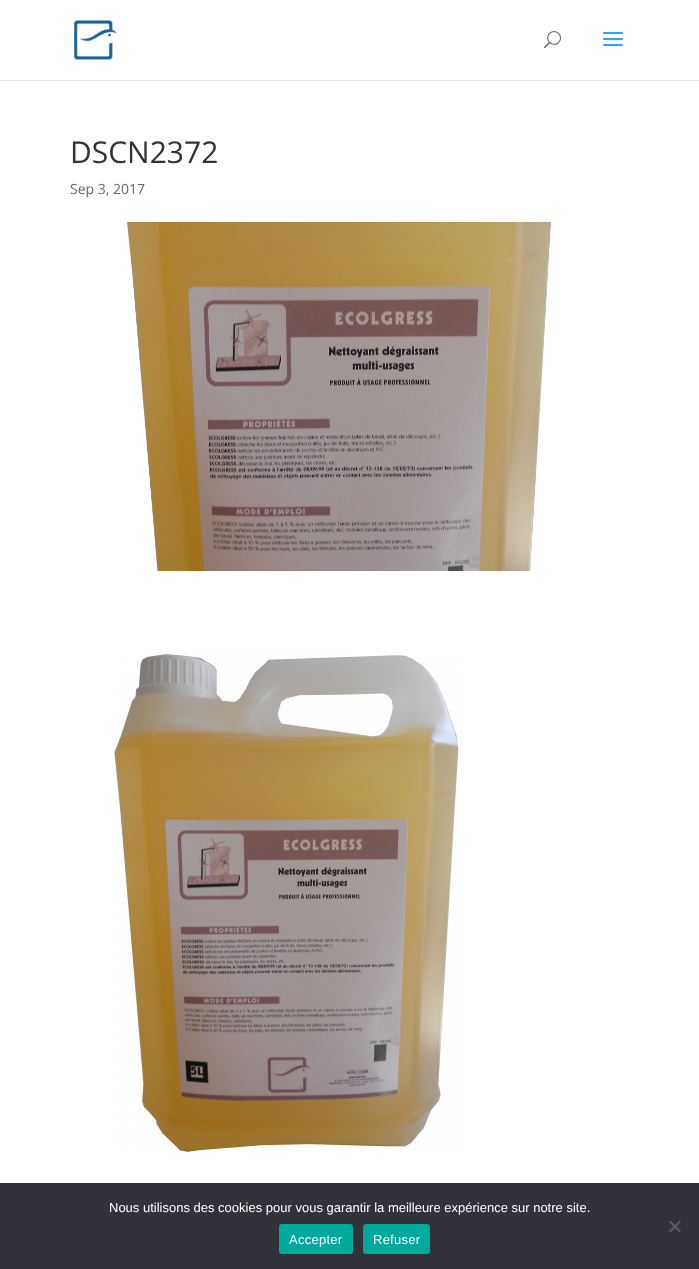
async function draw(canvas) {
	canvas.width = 699;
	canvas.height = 1269;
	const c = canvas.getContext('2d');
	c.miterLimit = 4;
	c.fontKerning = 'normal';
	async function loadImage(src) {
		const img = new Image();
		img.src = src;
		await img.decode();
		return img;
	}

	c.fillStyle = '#fff';
	c.fillRect(0, 0, 699, 1269);
	c.fillStyle = '#e6e6e6';
	c.fillRect(0, 80, 699, 1);
	c.drawImage(await loadImage('img1.png'), 74, 20, 43, 40);
	c.drawImage(await loadImage('img2.png'), 544, 31, 17, 18);
	c.drawImage(await loadImage('img3.png'), 603, 32, 20, 14);
	c.font = '30px Open Sans';
	c.fillStyle = '#333';
	c.fillText('DSCN2372', 70, 163);
	c.font = '14px Open Sans';
	c.fillStyle = '#666';
	c.fillText('Sep 3, 2017', 70, 194);
	c.drawImage(await loadImage('img4.png'), 127, 222, 425, 349);
	c.drawImage(await loadImage('img5.png'), 114, 654, 345, 498);
	c.fillStyle = '#32323a';
	c.fillRect(0, 1183, 699, 86);
	c.font = '13px Liberation Sans';
	c.fillStyle = '#fff';
	c.fillText('Nous utilisons des cookies pour vous garantir la meilleure expérience sur notre site.', 109, 1212);
	c.fillStyle = '#59595d';
	c.beginPath();
	c.moveTo(679.5, 1220.5);
	c.lineTo(681, 1222);
	c.lineTo(670.5, 1232.5);
	c.lineTo(669, 1231);
	c.closePath();
	c.fill();
	c.beginPath();
	c.moveTo(669, 1222);
	c.lineTo(670.5, 1220.5);
	c.lineTo(681, 1231);
	c.lineTo(679.5, 1232.5);
	c.closePath();
	c.fill();
	c.fillStyle = '#00a99d';
	c.beginPath();
	c.roundRect(279, 1224, 74, 30, 3);
	c.fill();
	c.letterSpacing = '0.25px';
	c.fillStyle = '#fff';
	c.fillText('Accepter', 289, 1244);
	c.fillStyle = '#00a99d';
	c.beginPath();
	c.roundRect(363, 1224, 67, 30, 3);
	c.fill();
	c.fillStyle = '#fff';
	c.fillText('Refuser', 373, 1244);
}

draw(document.querySelector('canvas'));
